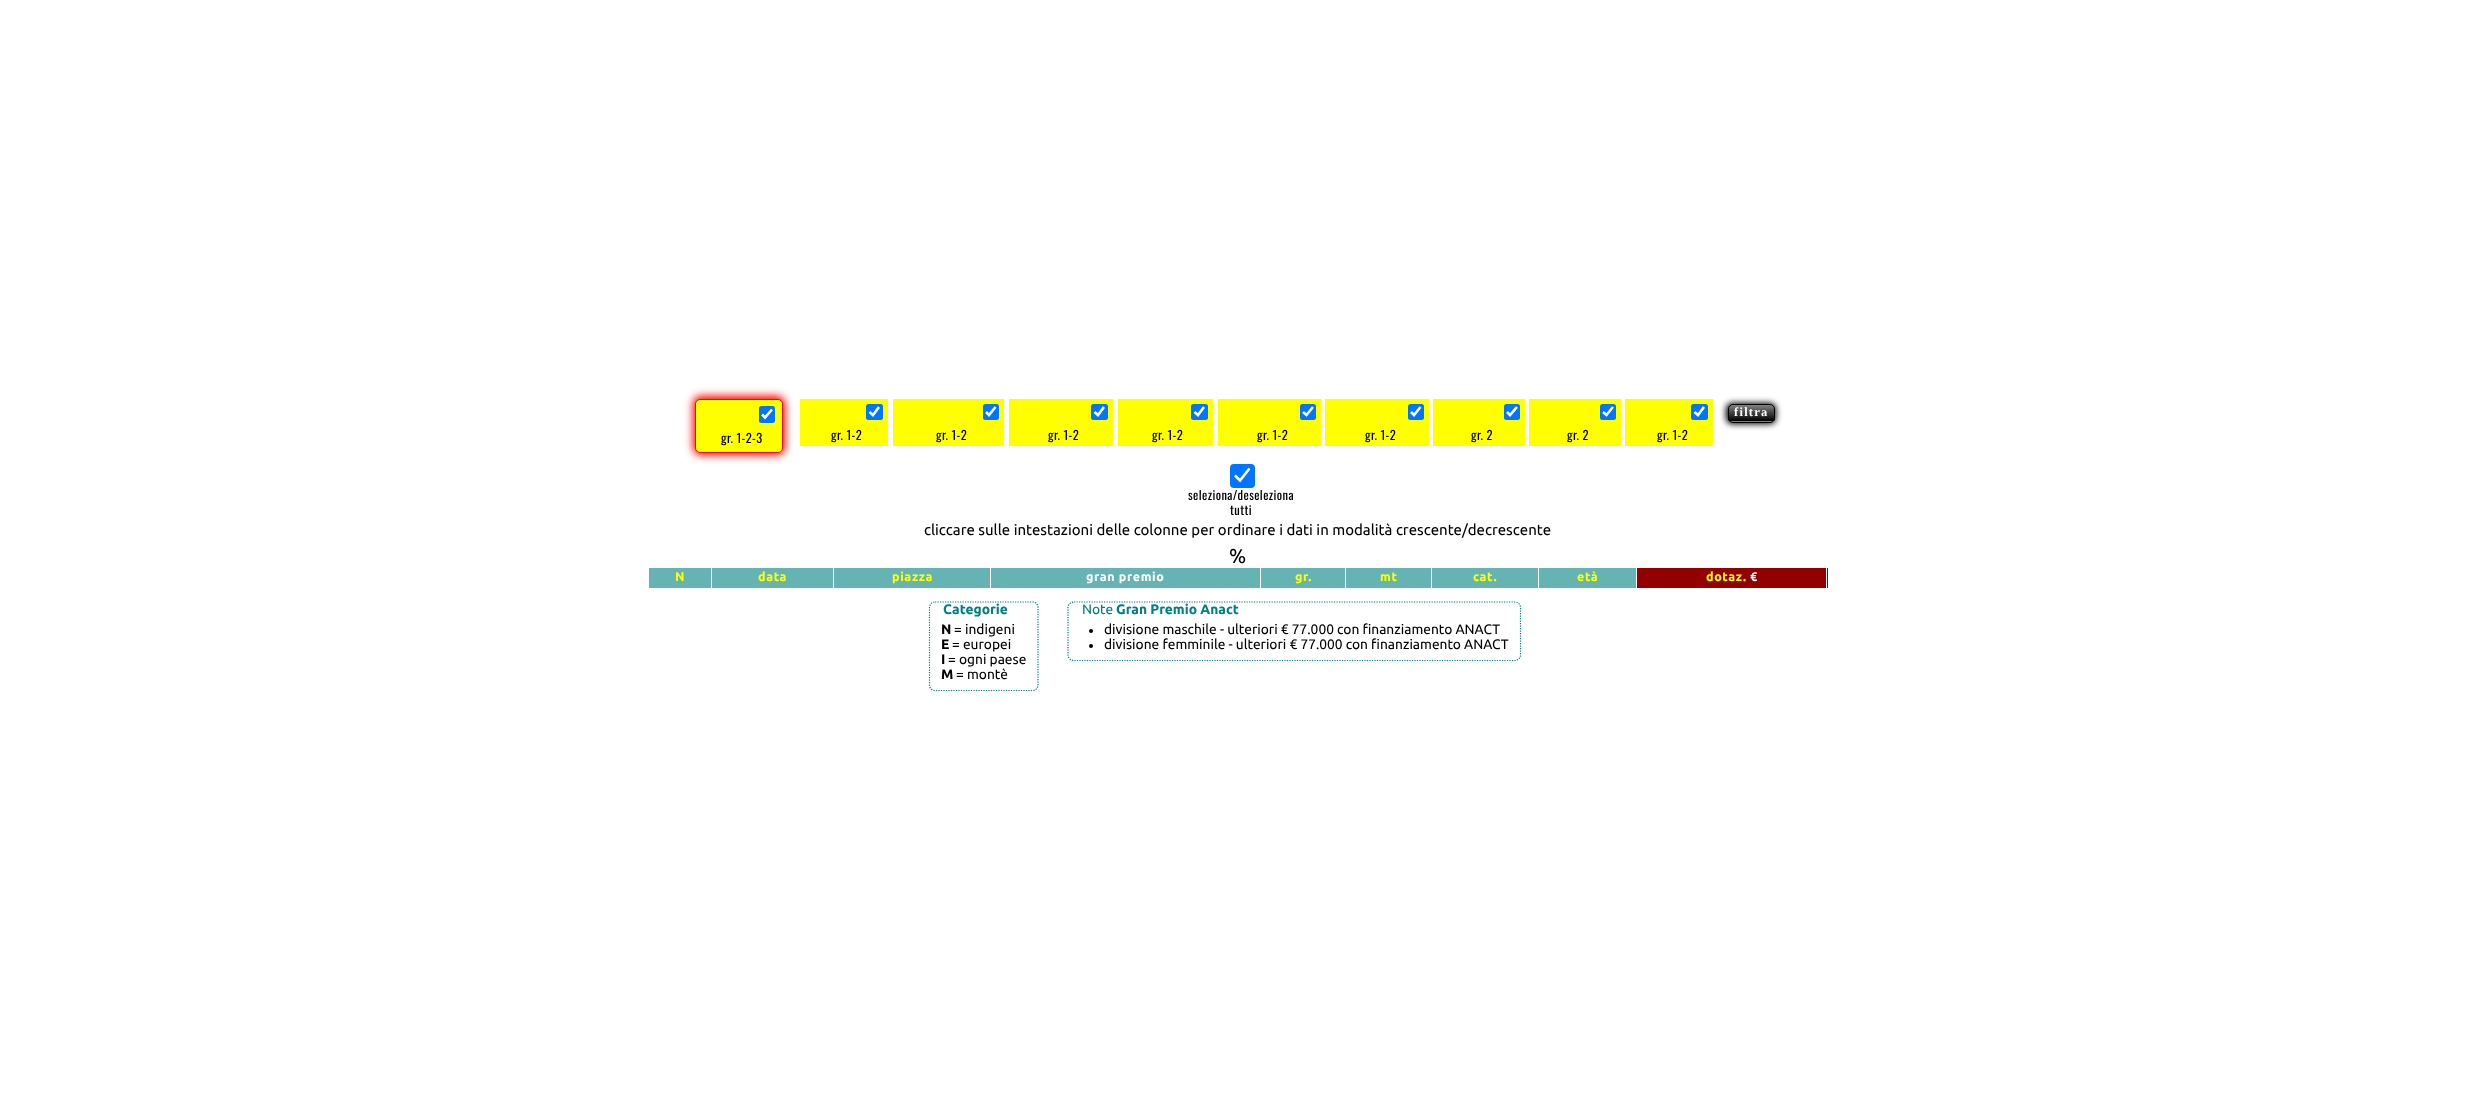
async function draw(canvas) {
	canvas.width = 2475;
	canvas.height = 1111;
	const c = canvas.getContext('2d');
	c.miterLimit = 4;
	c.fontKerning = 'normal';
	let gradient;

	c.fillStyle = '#fff';
	c.fillRect(0, 0, 2475, 1111);
	c.fillStyle = '#000';
	c.filter = 'blur(3px)';
	c.beginPath();
	c.roundRect(1726, 403, 50, 21, 6);
	c.fill();
	c.filter = 'none';
	c.save();
	c.beginPath();
	c.roundRect(1728, 404, 47, 19, 5);
	c.clip();
	gradient = c.createLinearGradient(1751, 405, 1751, 421);
	gradient.addColorStop(0, '#838383');
	gradient.addColorStop(1, '#000');
	c.fillStyle = gradient;
	c.fillRect(1728, 405, 47, 16);
	gradient = c.createLinearGradient(1751, 421, 1751, 438);
	gradient.addColorStop(0, '#838383');
	gradient.addColorStop(1, '#000');
	c.fillStyle = gradient;
	c.fillRect(1728, 421, 47, 2);
	c.restore();
	c.beginPath();
	c.roundRect(1728.5, 404.5, 46, 18, 4.5);
	c.strokeStyle = '#000';
	c.stroke();
	c.letterSpacing = '1.25px';
	c.font = 'bold 12.5px Liberation Serif';
	c.fillStyle = '#fff';
	c.fillText('filtra', 1734, 416);
	c.fillStyle = '#f00';
	c.filter = 'blur(4px)';
	c.beginPath();
	c.roundRect(693, 396, 92, 59, 8);
	c.fill();
	c.filter = 'none';
	c.fillStyle = '#ff0';
	c.beginPath();
	c.roundRect(695.5, 399.5, 87, 53, 4.5);
	c.fill();
	c.strokeStyle = '#f00';
	c.stroke();
	c.fillStyle = '#0075ff';
	c.beginPath();
	c.roundRect(759, 406, 16, 17, 2.5);
	c.fill();
	c.beginPath();
	c.moveTo(762, 414.5);
	c.lineTo(765, 417.5);
	c.lineTo(772, 409.5);
	c.strokeStyle = '#fff';
	c.lineWidth = 2.6;
	c.stroke();
	c.letterSpacing = '0.4px';
	c.font = '12.5px Oswald';
	c.fillStyle = '#000';
	c.fillText('gr. 1-2-3', 721, 443);
	c.fillStyle = '#ff0';
	c.fillRect(800, 399, 88, 47);
	c.fillStyle = '#0075ff';
	c.beginPath();
	c.roundRect(866, 404, 17, 16, 2.5);
	c.fill();
	c.beginPath();
	c.moveTo(869.5, 412);
	c.lineTo(873, 415);
	c.lineTo(879, 407);
	c.stroke();
	c.fillStyle = '#000';
	c.fillText('gr. 1-2', 831, 440);
	c.fillStyle = '#ff0';
	c.fillRect(893, 399, 111, 47);
	c.fillStyle = '#0075ff';
	c.beginPath();
	c.roundRect(983, 404, 16, 16, 2.5);
	c.fill();
	c.beginPath();
	c.moveTo(986, 412);
	c.lineTo(989, 415);
	c.lineTo(995.5, 407);
	c.stroke();
	c.fillStyle = '#000';
	c.fillText('gr. 1-2', 936, 440);
	c.fillStyle = '#ff0';
	c.fillRect(1009, 399, 104, 47);
	c.fillStyle = '#0075ff';
	c.beginPath();
	c.roundRect(1091, 404, 17, 16, 2.5);
	c.fill();
	c.beginPath();
	c.moveTo(1094.5, 412);
	c.lineTo(1098, 415);
	c.lineTo(1104, 407);
	c.stroke();
	c.fillStyle = '#000';
	c.fillText('gr. 1-2', 1048, 440);
	c.fillStyle = '#ff0';
	c.fillRect(1118, 399, 95, 47);
	c.fillStyle = '#0075ff';
	c.beginPath();
	c.roundRect(1191, 404, 17, 16, 2.5);
	c.fill();
	c.beginPath();
	c.moveTo(1194.5, 412);
	c.lineTo(1198, 415);
	c.lineTo(1204, 407);
	c.stroke();
	c.fillStyle = '#000';
	c.fillText('gr. 1-2', 1152, 440);
	c.fillStyle = '#ff0';
	c.fillRect(1218, 399, 103, 47);
	c.fillStyle = '#0075ff';
	c.beginPath();
	c.roundRect(1300, 404, 16, 16, 2.5);
	c.fill();
	c.beginPath();
	c.moveTo(1303, 412);
	c.lineTo(1306.5, 415);
	c.lineTo(1313, 407);
	c.stroke();
	c.fillStyle = '#000';
	c.fillText('gr. 1-2', 1257, 440);
	c.fillStyle = '#ff0';
	c.fillRect(1325, 399, 104, 47);
	c.fillStyle = '#0075ff';
	c.beginPath();
	c.roundRect(1408, 404, 16, 16, 2.5);
	c.fill();
	c.beginPath();
	c.moveTo(1411, 412);
	c.lineTo(1414, 415);
	c.lineTo(1420.5, 407);
	c.stroke();
	c.fillStyle = '#000';
	c.fillText('gr. 1-2', 1365, 440);
	c.fillStyle = '#ff0';
	c.fillRect(1433, 399, 92, 47);
	c.fillStyle = '#0075ff';
	c.beginPath();
	c.roundRect(1504, 404, 16, 16, 2.5);
	c.fill();
	c.beginPath();
	c.moveTo(1507, 412);
	c.lineTo(1510, 415);
	c.lineTo(1517, 407);
	c.stroke();
	c.fillStyle = '#000';
	c.fillText('gr. 2', 1471, 440);
	c.fillStyle = '#ff0';
	c.fillRect(1529, 399, 92, 47);
	c.fillStyle = '#0075ff';
	c.beginPath();
	c.roundRect(1600, 404, 16, 16, 2.5);
	c.fill();
	c.beginPath();
	c.moveTo(1603, 412);
	c.lineTo(1606.5, 415);
	c.lineTo(1613, 407);
	c.stroke();
	c.fillStyle = '#000';
	c.fillText('gr. 2', 1567, 440);
	c.fillStyle = '#ff0';
	c.fillRect(1625, 399, 88, 47);
	c.fillStyle = '#0075ff';
	c.beginPath();
	c.roundRect(1691, 404, 17, 16, 2.5);
	c.fill();
	c.beginPath();
	c.moveTo(1694.5, 412);
	c.lineTo(1698, 415);
	c.lineTo(1704, 407);
	c.stroke();
	c.fillStyle = '#000';
	c.fillText('gr. 1-2', 1657, 440);
	c.fillStyle = '#0075ff';
	c.beginPath();
	c.roundRect(1230, 464, 25, 24, 4);
	c.fill();
	c.beginPath();
	c.moveTo(1235, 475.5);
	c.lineTo(1240, 480.5);
	c.lineTo(1249.5, 468.5);
	c.stroke();
	c.fillStyle = '#000';
	c.fillText('seleziona/deseleziona', 1188, 500);
	c.fillText('tutti', 1230, 515);
	c.letterSpacing = '0px';
	c.font = '15px Ubuntu';
	c.fillText('cliccare sulle intestazioni delle colonne per ordinare i dati in modalità crescente/decrescente', 924, 535);
	c.font = '20px Ubuntu';
	c.fillText('%', 1229, 563);
	c.fillStyle = '#66b3b3';
	c.fillRect(649, 568, 184, 20);
	c.letterSpacing = '0.6px';
	c.font = 'bold 12.5px Ubuntu';
	c.fillStyle = '#ff0';
	c.fillText('N', 675, 581);
	c.fillStyle = '#fff';
	c.fillRect(711, 566, 1, 23);
	c.fillStyle = '#ff0';
	c.fillText('data', 758, 581);
	c.fillStyle = '#66b3b3';
	c.fillRect(834, 568, 156, 20);
	c.fillStyle = '#ff0';
	c.fillText('piazza', 892, 581);
	c.fillStyle = '#66b3b3';
	c.fillRect(991, 568, 269, 20);
	c.fillStyle = '#fff';
	c.fillText('gran premio', 1086, 581);
	c.fillStyle = '#66b3b3';
	c.fillRect(1261, 568, 84, 20);
	c.fillStyle = '#ff0';
	c.fillText('gr.', 1295, 581);
	c.fillStyle = '#66b3b3';
	c.fillRect(1346, 568, 192, 20);
	c.fillStyle = '#ff0';
	c.fillText('mt', 1380, 581);
	c.fillStyle = '#fff';
	c.fillRect(1431, 566, 1, 23);
	c.fillStyle = '#ff0';
	c.fillText('cat.', 1473, 581);
	c.fillStyle = '#66b3b3';
	c.fillRect(1539, 568, 97, 20);
	c.fillStyle = '#ff0';
	c.fillText('età', 1577, 581);
	c.fillStyle = '#920000';
	c.fillRect(1637, 568, 191, 20);
	c.fillStyle = '#fff';
	c.fillRect(1826, 566, 1, 23);
	c.fillStyle = '#ff0';
	c.fillText('dotaz.', 1706, 581);
	c.fillStyle = '#fff';
	c.fillText('€', 1750, 581);
	c.beginPath();
	c.moveTo(935, 602);
	c.lineTo(1032.5, 602);
	c.bezierCurveTo(1035.5, 602, 1038, 604.5, 1038, 607.5);
	c.lineTo(1038, 685);
	c.bezierCurveTo(1038, 688, 1035.5, 690.5, 1032.5, 690.5);
	c.lineTo(935, 690.5);
	c.bezierCurveTo(932, 690.5, 929.5, 688, 929.5, 685);
	c.lineTo(929.5, 607.5);
	c.bezierCurveTo(929.5, 604.5, 932, 602, 935, 602);
	c.closePath();
	c.strokeStyle = '#008080';
	c.lineWidth = 1.2;
	c.setLineDash([1.25, 1.25]);
	c.stroke();
	c.letterSpacing = '0px';
	c.font = 'bold 13.75px Ubuntu';
	c.fillStyle = '#008080';
	c.fillText('Categorie', 943, 614);
	c.fillStyle = '#000';
	c.fillText('N', 941, 634);
	c.font = '13.75px Ubuntu';
	c.fillText('= indigeni', 954, 634);
	c.font = 'bold 13.75px Ubuntu';
	c.fillText('E', 941, 649);
	c.font = '13.75px Ubuntu';
	c.fillText('= europei', 952, 649);
	c.font = 'bold 13.75px Ubuntu';
	c.fillText('I', 941, 664);
	c.font = '13.75px Ubuntu';
	c.fillText('= ogni paese', 948, 664);
	c.font = 'bold 13.75px Ubuntu';
	c.fillText('M', 941, 679);
	c.font = '13.75px Ubuntu';
	c.fillText('= montè', 956, 679);
	c.beginPath();
	c.moveTo(1074, 602);
	c.lineTo(1515, 602);
	c.bezierCurveTo(1518, 602, 1520.5, 604.5, 1520.5, 607.5);
	c.lineTo(1520.5, 655);
	c.bezierCurveTo(1520.5, 658, 1518, 660.5, 1515, 660.5);
	c.lineTo(1074, 660.5);
	c.bezierCurveTo(1070.5, 660.5, 1068, 658, 1068, 655);
	c.lineTo(1068, 607.5);
	c.bezierCurveTo(1068, 604.5, 1070.5, 602, 1074, 602);
	c.closePath();
	c.stroke();
	c.fillStyle = '#008080';
	c.fillText('Note', 1082, 614);
	c.font = 'bold 13.75px Ubuntu';
	c.fillText('Gran Premio Anact', 1116, 614);
	c.fillStyle = '#000';
	c.beginPath();
	c.arc(1091, 631, 2, 0, 2 * Math.PI);
	c.fill();
	c.font = '13.75px Ubuntu';
	c.fillText('divisione maschile - ulteriori € 77.000 con finanziamento ANACT', 1104, 634);
	c.beginPath();
	c.arc(1091, 646, 2, 0, 2 * Math.PI);
	c.fill();
	c.fillText('divisione femminile - ulteriori € 77.000 con finanziamento ANACT', 1104, 649);
}

draw(document.querySelector('canvas'));
